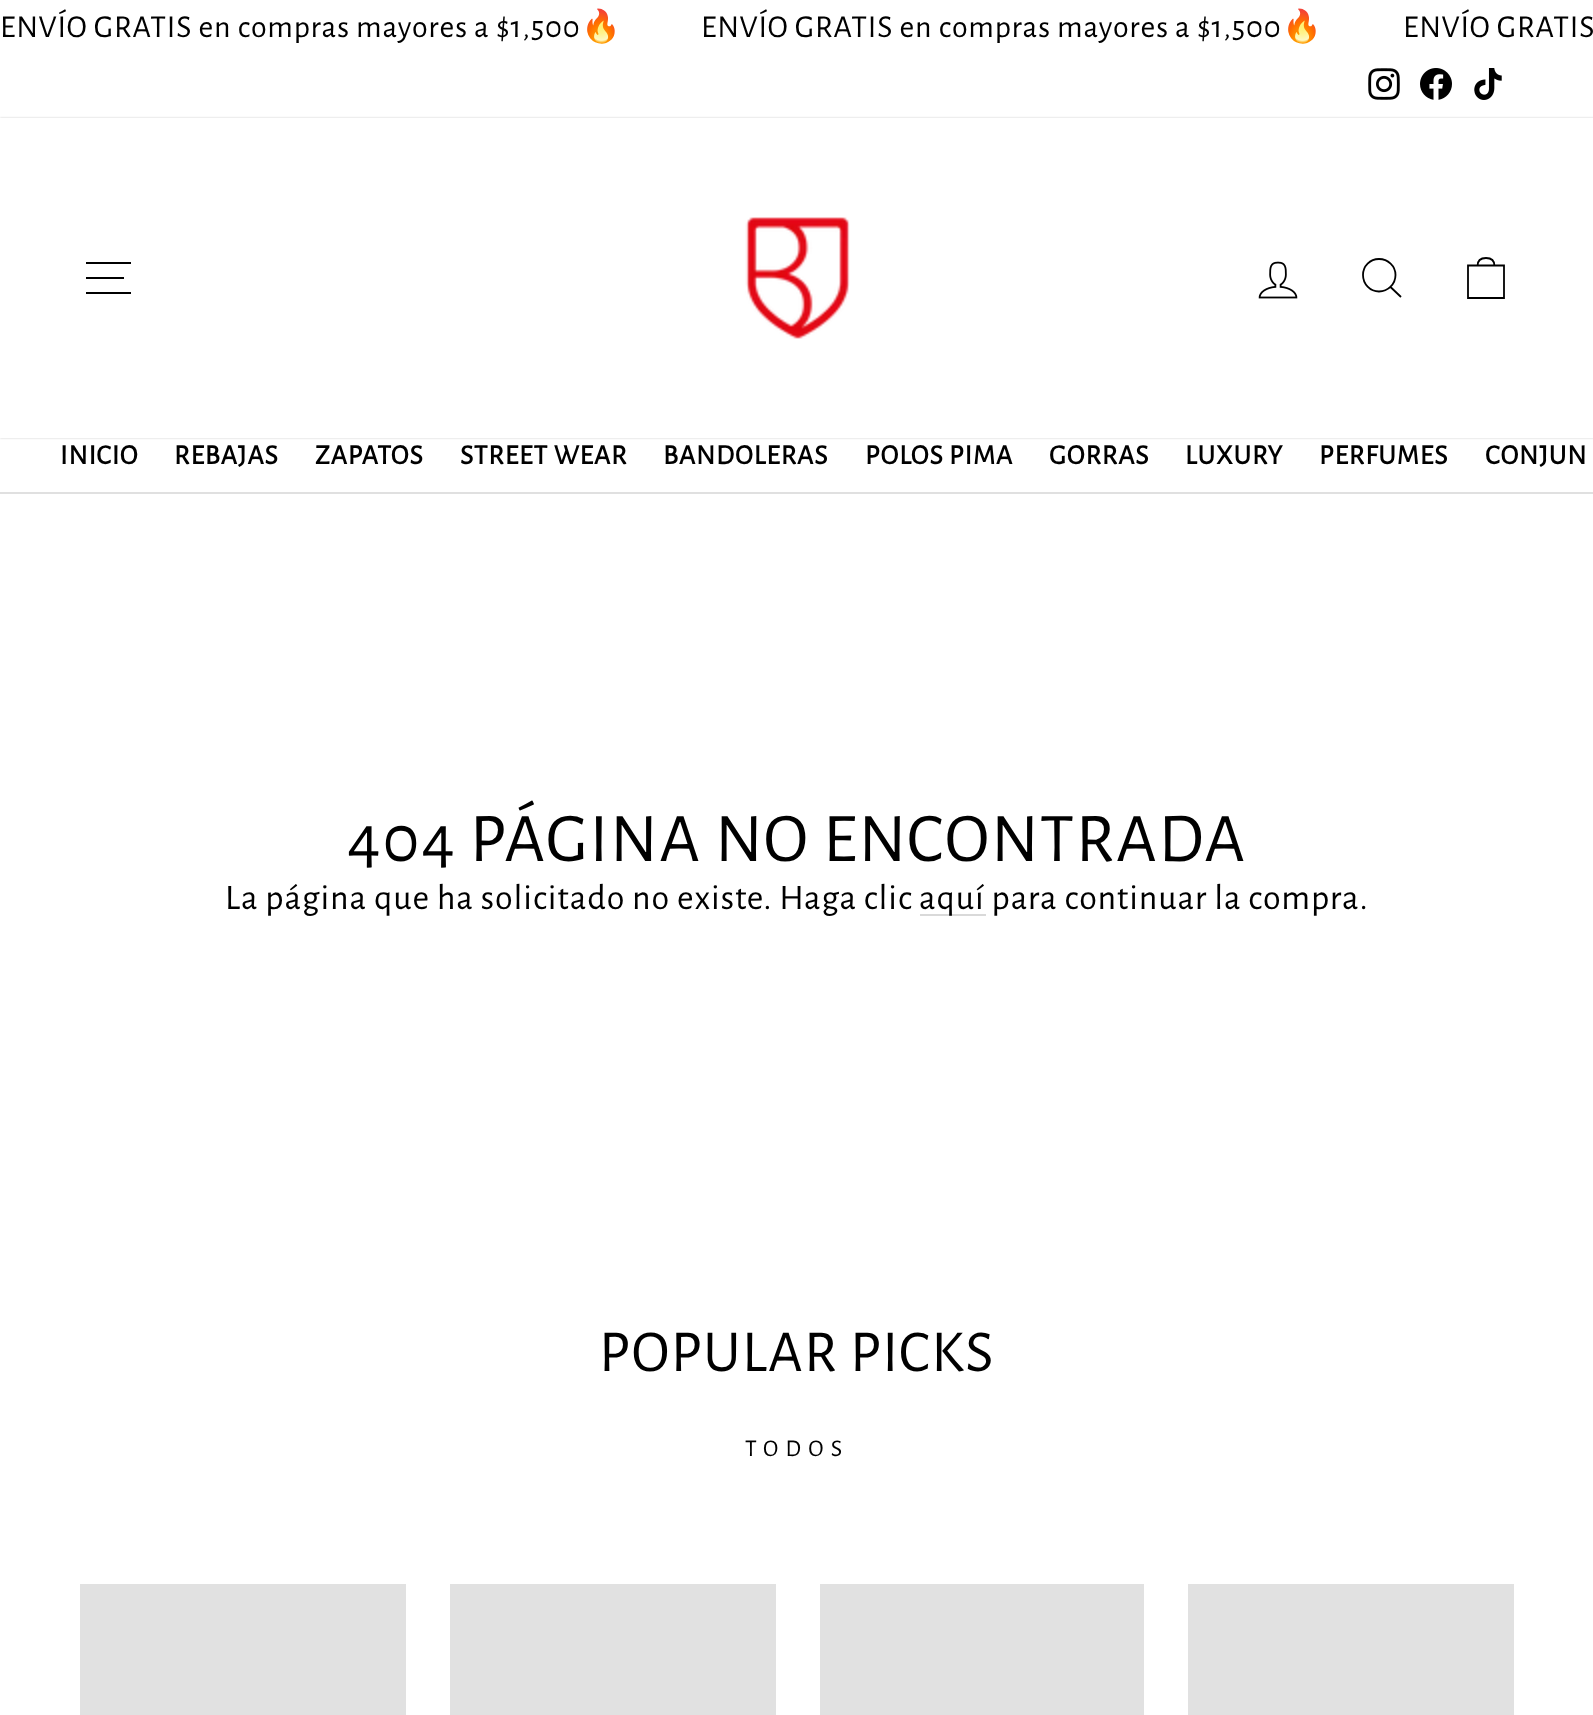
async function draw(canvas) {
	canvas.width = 1593;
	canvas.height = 1715;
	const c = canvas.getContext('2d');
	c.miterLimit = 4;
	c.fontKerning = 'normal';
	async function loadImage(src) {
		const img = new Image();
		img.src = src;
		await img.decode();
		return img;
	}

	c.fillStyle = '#fff';
	c.fillRect(0, 0, 1593, 1715);
	c.letterSpacing = '0.9px';
	c.font = '32px Alegreya Sans';
	c.fillStyle = '#000';
	c.fillText('ENVÍO GRATIS en compras mayores a $1,500', 0, 37);
	c.font = '32px Noto Color Emoji';
	c.fillText('🔥', 581, 37);
	c.font = '32px Alegreya Sans';
	c.fillText('ENVÍO GRATIS en compras mayores a $1,500', 701, 37);
	c.font = '32px Noto Color Emoji';
	c.fillText('🔥', 1282, 37);
	c.font = '32px Alegreya Sans';
	c.fillText('ENVÍO GRATIS', 1403, 37);
	c.drawImage(await loadImage('img1.png'), 1368, 68, 32, 32);
	c.drawImage(await loadImage('img2.png'), 1420, 68, 32, 32);
	c.drawImage(await loadImage('img3.png'), 1474, 68, 28, 32);
	c.save();
	c.beginPath();
	c.moveTo(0, 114);
	c.lineTo(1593, 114);
	c.lineTo(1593, 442);
	c.lineTo(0, 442);
	c.closePath();
	c.moveTo(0, 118);
	c.lineTo(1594, 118);
	c.lineTo(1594, 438);
	c.lineTo(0, 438);
	c.closePath();
	c.clip('evenodd');
	c.fillStyle = '#00000033';
	c.filter = 'blur(1px)';
	c.beginPath();
	c.rect(0, 118, 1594, 320);
	c.fill();
	c.filter = 'none';
	c.restore();
	c.beginPath();
	c.moveTo(86, 263);
	c.lineTo(131, 263);
	c.moveTo(86, 278);
	c.lineTo(124, 278);
	c.moveTo(86, 293);
	c.lineTo(131, 293);
	c.strokeStyle = '#000';
	c.lineWidth = 1.8;
	c.stroke();
	c.drawImage(await loadImage('img4.png'), 745, 217, 105, 122);
	c.drawImage(await loadImage('img5.png'), 1258, 261, 40, 38);
	c.beginPath();
	c.moveTo(1395.5, 275);
	c.bezierCurveTo(1395.5, 284, 1388, 291.5, 1379, 291.5);
	c.bezierCurveTo(1370, 291.5, 1363, 284, 1363, 275);
	c.bezierCurveTo(1363, 266, 1370, 259, 1379, 259);
	c.bezierCurveTo(1388, 259, 1395.5, 266, 1395.5, 275);
	c.closePath();
	c.moveTo(1401, 297);
	c.lineTo(1390.5, 287);
	c.stroke();
	c.beginPath();
	c.moveTo(1468, 265.5);
	c.lineTo(1504, 265.5);
	c.lineTo(1504, 298);
	c.lineTo(1468, 298);
	c.closePath();
	c.moveTo(1477.5, 266);
	c.bezierCurveTo(1477.5, 259.5, 1481.5, 258, 1486, 258);
	c.bezierCurveTo(1490.5, 258, 1494.5, 259.5, 1494.5, 266);
	c.stroke();
	c.fillStyle = '#e0e0e0';
	c.fillRect(0, 492, 1593, 2);
	c.font = 'bold 28px Alegreya Sans';
	c.fillStyle = '#000';
	for (const [text, x, y] of [
		['INICIO', 60, 464],
		['REBAJAS', 174, 464],
		['ZAPATOS', 315, 464],
		['STREET WEAR', 460, 464],
		['BANDOLERAS', 663, 464],
		['POLOS PIMA', 865, 464],
		['GORRAS', 1049, 464],
		['LUXURY', 1185, 464],
		['PERFUMES', 1319, 464],
		['CONJUN', 1485, 464],
	]) {
		c.fillText(text, x, y);
	}
	c.letterSpacing = '1.75px';
	c.font = '70px Alegreya Sans';
	c.fillText('404 PÁGINA NO ENCONTRADA', 347, 861);
	c.letterSpacing = '0.9px';
	c.font = '36px Alegreya Sans';
	c.fillText('La página que ha solicitado no existe. Haga clic', 225, 909);
	c.fillStyle = '#d9d9d9';
	c.fillRect(920, 914, 66, 2);
	c.fillStyle = '#000';
	c.fillText('aquí para continuar la compra.', 919, 909);
	c.letterSpacing = '1.5px';
	c.font = '59.5px Alegreya Sans';
	c.fillText('POPULAR PICKS', 599, 1371);
	c.letterSpacing = '7.25px';
	c.font = '24px Alegreya Sans';
	c.fillText('TODOS', 745, 1456);
	for (const [x, y, w, h, color] of [
		[80, 1584, 326, 131, '#e1e1e1'],
		[450, 1584, 326, 131, '#e1e1e1'],
		[820, 1584, 324, 131, '#e1e1e1'],
		[1188, 1584, 326, 131, '#e1e1e1'],
	]) {
		c.fillStyle = color;
		c.fillRect(x, y, w, h);
	}
}

draw(document.querySelector('canvas'));
